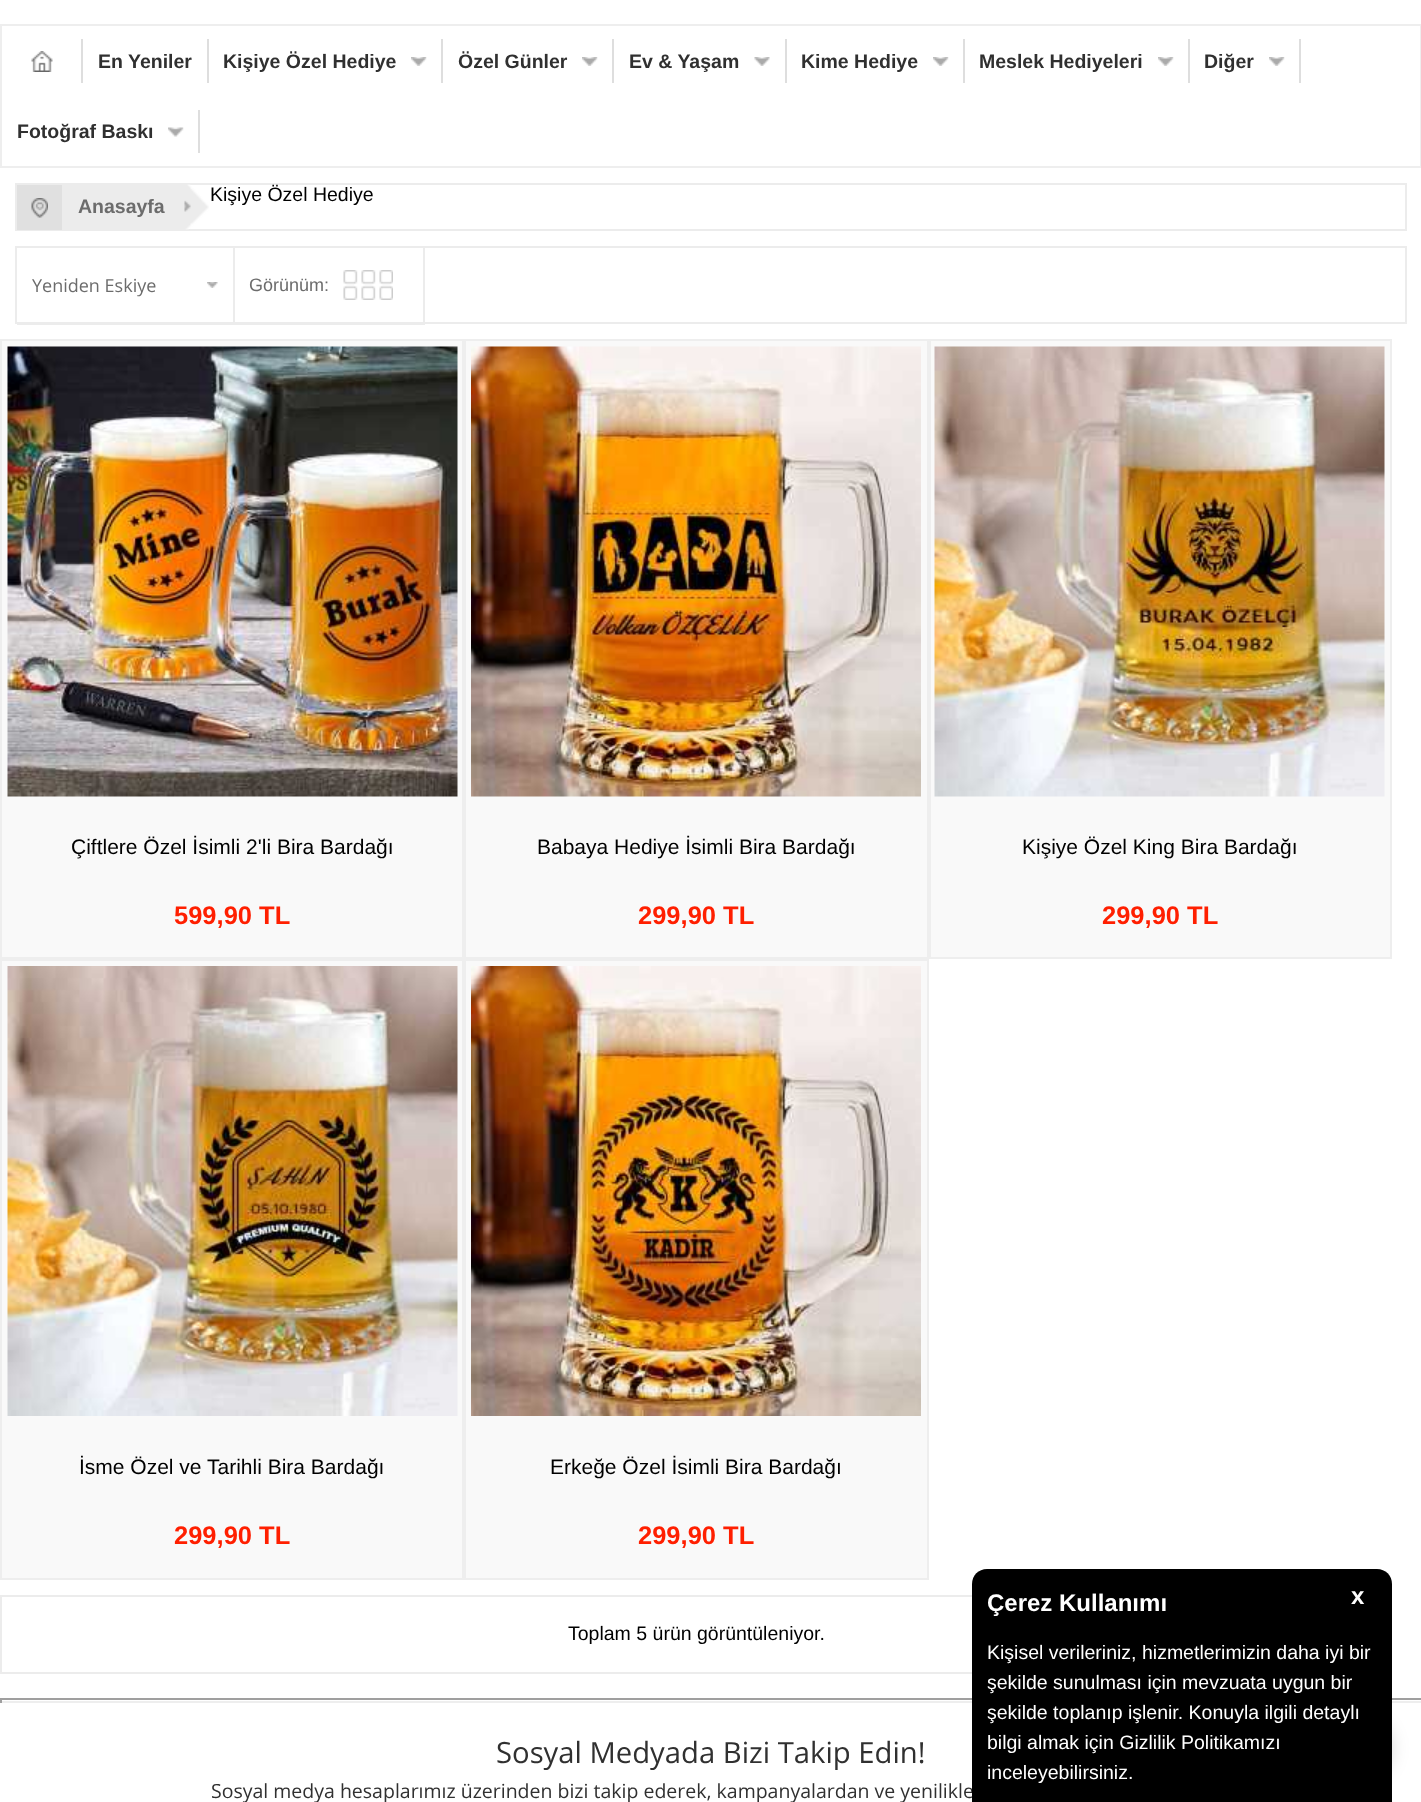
async function draw(canvas) {
	canvas.width = 1421;
	canvas.height = 1802;
	const c = canvas.getContext('2d');
	c.miterLimit = 4;
	c.fontKerning = 'normal';
	async function loadImage(src) {
		const img = new Image();
		img.src = src;
		await img.decode();
		return img;
	}

	c.fillStyle = '#fff';
	c.fillRect(0, 0, 1421, 1802);
	c.strokeStyle = '#eee';
	c.lineWidth = 2;
	c.strokeRect(1, 25, 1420, 142);
	c.drawImage(await loadImage('img1.png'), 31, 51, 22, 21);
	c.fillStyle = '#dedede';
	c.fillRect(81, 39, 2, 44);
	c.fillRect(207, 39, 2, 44);
	c.font = 'bold 19.5px Liberation Sans';
	c.fillStyle = '#303030';
	c.fillText('En Yeniler', 98, 68);
	c.drawImage(await loadImage('img2.png'), 411, 57, 16, 9);
	c.fillStyle = '#dedede';
	c.fillRect(441, 39, 2, 44);
	c.fillStyle = '#303030';
	c.fillText('Kişiye Özel Hediye', 223, 68);
	c.drawImage(await loadImage('img2.png'), 582, 57, 16, 9);
	c.fillStyle = '#dedede';
	c.fillRect(612, 39, 2, 44);
	c.fillStyle = '#303030';
	c.fillText('Özel Günler', 458, 68);
	c.drawImage(await loadImage('img3.png'), 754, 57, 16, 9);
	c.fillStyle = '#dedede';
	c.fillRect(785, 39, 2, 44);
	c.fillStyle = '#303030';
	c.fillText('Ev & Yaşam', 629, 68);
	c.drawImage(await loadImage('img4.png'), 933, 57, 16, 9);
	c.fillStyle = '#dedede';
	c.fillRect(963, 39, 2, 44);
	c.fillStyle = '#303030';
	c.fillText('Kime Hediye', 801, 68);
	c.drawImage(await loadImage('img2.png'), 1158, 57, 16, 9);
	c.fillStyle = '#dedede';
	c.fillRect(1188, 39, 2, 44);
	c.fillStyle = '#303030';
	c.fillText('Meslek Hediyeleri', 979, 68);
	c.drawImage(await loadImage('img5.png'), 1269, 57, 16, 9);
	c.fillStyle = '#dedede';
	c.fillRect(1299, 39, 2, 44);
	c.fillStyle = '#303030';
	c.fillText('Diğer', 1204, 68);
	c.drawImage(await loadImage('img6.png'), 168, 127, 16, 10);
	c.fillStyle = '#dedede';
	c.fillRect(198, 110, 2, 43);
	c.fillStyle = '#303030';
	c.fillText('Fotoğraf Baskı', 17, 138);
	c.strokeStyle = '#ececec';
	c.strokeRect(16, 184, 1390, 46);
	c.fillStyle = '#e0e0e0';
	c.fillRect(17, 185, 45, 45);
	c.drawImage(await loadImage('img7.png'), 31, 198, 17, 20);
	c.fillStyle = '#ececec';
	c.fillRect(62, 185, 2, 45);
	c.font = '19.5px Liberation Sans';
	c.fillStyle = '#000';
	c.fillText('Kişiye Özel Hediye', 210, 201);
	c.drawImage(await loadImage('img8.png'), 64, 184, 145, 46);
	c.font = 'bold 19.5px Liberation Sans';
	c.fillStyle = '#6c6c6c';
	c.fillText('Anasayfa', 78, 213);
	c.strokeRect(16, 247, 1390, 76);
	c.fillStyle = '#ececec';
	c.fillRect(233, 248, 2, 76);
	c.fillRect(17, 324, 408, 1);
	c.drawImage(await loadImage('img9.png'), 207, 282, 11, 6);
	c.font = '18px Open Sans';
	c.fillStyle = '#6c6c6c';
	c.fillText('Yeniden Eskiye', 32, 292);
	c.fillStyle = '#ececec';
	c.fillRect(423, 248, 2, 76);
	c.font = '18px Liberation Sans';
	c.fillStyle = '#6c6c6c';
	c.fillText('Görünüm:', 249, 291);
	c.drawImage(await loadImage('img10.png'), 343, 270, 50, 30);
	c.fillStyle = '#f9f9f9';
	c.beginPath();
	c.rect(1, 340, 462, 618);
	c.fill();
	c.strokeStyle = '#eee';
	c.stroke();
	c.drawImage(await loadImage('img11.png'), 7, 346, 451, 451);
	c.font = '21px Liberation Sans';
	c.fillStyle = '#000';
	c.fillText('Çiftlere Özel İsimli 2\'li Bira Bardağı', 71, 854);
	c.font = 'bold 25.5px Liberation Sans';
	c.fillStyle = '#ff1f00';
	c.fillText('599,90 TL', 174, 924);
	c.fillStyle = '#f9f9f9';
	c.beginPath();
	c.rect(465, 340, 463, 618);
	c.fill();
	c.stroke();
	c.drawImage(await loadImage('img12.png'), 471, 346, 450, 451);
	c.font = '21px Liberation Sans';
	c.fillStyle = '#000';
	c.fillText('Babaya Hediye İsimli Bira Bardağı', 537, 854);
	c.font = 'bold 25.5px Liberation Sans';
	c.fillStyle = '#ff1f00';
	c.fillText('299,90 TL', 638, 924);
	c.fillStyle = '#f9f9f9';
	c.beginPath();
	c.rect(930, 340, 461, 618);
	c.fill();
	c.stroke();
	c.drawImage(await loadImage('img13.png'), 934, 346, 451, 451);
	c.font = '21px Liberation Sans';
	c.fillStyle = '#000';
	c.fillText('Kişiye Özel King Bira Bardağı', 1022, 854);
	c.font = 'bold 25.5px Liberation Sans';
	c.fillStyle = '#ff1f00';
	c.fillText('299,90 TL', 1102, 924);
	c.fillStyle = '#f9f9f9';
	c.beginPath();
	c.rect(1, 960, 462, 619);
	c.fill();
	c.stroke();
	c.drawImage(await loadImage('img14.png'), 7, 966, 451, 450);
	c.font = '21px Liberation Sans';
	c.fillStyle = '#000';
	c.fillText('İsme Özel ve Tarihli Bira Bardağı', 79, 1474);
	c.font = 'bold 25.5px Liberation Sans';
	c.fillStyle = '#ff1f00';
	c.fillText('299,90 TL', 174, 1544);
	c.fillStyle = '#f9f9f9';
	c.beginPath();
	c.rect(465, 960, 463, 619);
	c.fill();
	c.stroke();
	c.drawImage(await loadImage('img15.png'), 471, 966, 450, 450);
	c.font = '21px Liberation Sans';
	c.fillStyle = '#000';
	c.fillText('Erkeğe Özel İsimli Bira Bardağı', 550, 1474);
	c.font = 'bold 25.5px Liberation Sans';
	c.fillStyle = '#ff1f00';
	c.fillText('299,90 TL', 638, 1544);
	c.strokeStyle = '#ececec';
	c.strokeRect(1, 1596, 1390, 77);
	c.font = '19.5px Liberation Sans';
	c.fillStyle = '#000';
	c.fillText('Toplam 5 ürün görüntüleniyor.', 568, 1640);
	for (const [x, y, w, h, color] of [
		[0, 1698, 1421, 2, '#9f9f9f'],
		[0, 1701, 1421, 2, '#eee'],
		[0, 1698, 2, 5, '#9f9f9f'],
	]) {
		c.fillStyle = color;
		c.fillRect(x, y, w, h);
	}
	c.font = '29.25px Open Sans';
	c.fillStyle = '#303030';
	c.fillText('Sosyal Medyada Bizi Takip Edin!', 496, 1763);
	c.font = '19.5px Open Sans';
	c.fillText('Sosyal medya hesaplarımız üzerinden bizi takip ederek, kampanyalardan ve yenilikle', 211, 1798);
	c.fillStyle = '#00000026';
	c.filter = 'blur(9px)';
	c.beginPath();
	c.roundRect(1091, 1718, 301, 60, 30);
	c.fill();
	c.filter = 'none';
	c.fillStyle = '#000';
	c.beginPath();
	c.moveTo(987, 1569);
	c.lineTo(1377, 1569);
	c.bezierCurveTo(1385.5, 1569, 1392, 1575.5, 1392, 1584);
	c.lineTo(1392, 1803);
	c.lineTo(972, 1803);
	c.lineTo(972, 1584);
	c.bezierCurveTo(972, 1575.5, 978.5, 1569, 987, 1569);
	c.closePath();
	c.fill();
	c.font = 'bold 24px Liberation Sans';
	c.fillStyle = '#fff';
	c.fillText('Çerez Kullanımı', 987, 1611);
	c.fillText('x', 1351, 1604);
	c.font = '19.5px Liberation Sans';
	for (const [text, x, y] of [
		['Kişisel verileriniz, hizmetlerimizin daha iyi bir', 987, 1659],
		['şekilde sunulması için mevzuata uygun bir', 987, 1689],
		['şekilde toplanıp işlenir. Konuyla ilgili detaylı', 987, 1719],
		['bilgi almak için Gizlilik Politikamızı', 987, 1749],
		['inceleyebilirsiniz.', 987, 1779],
	]) {
		c.fillText(text, x, y);
	}
}

draw(document.querySelector('canvas'));
